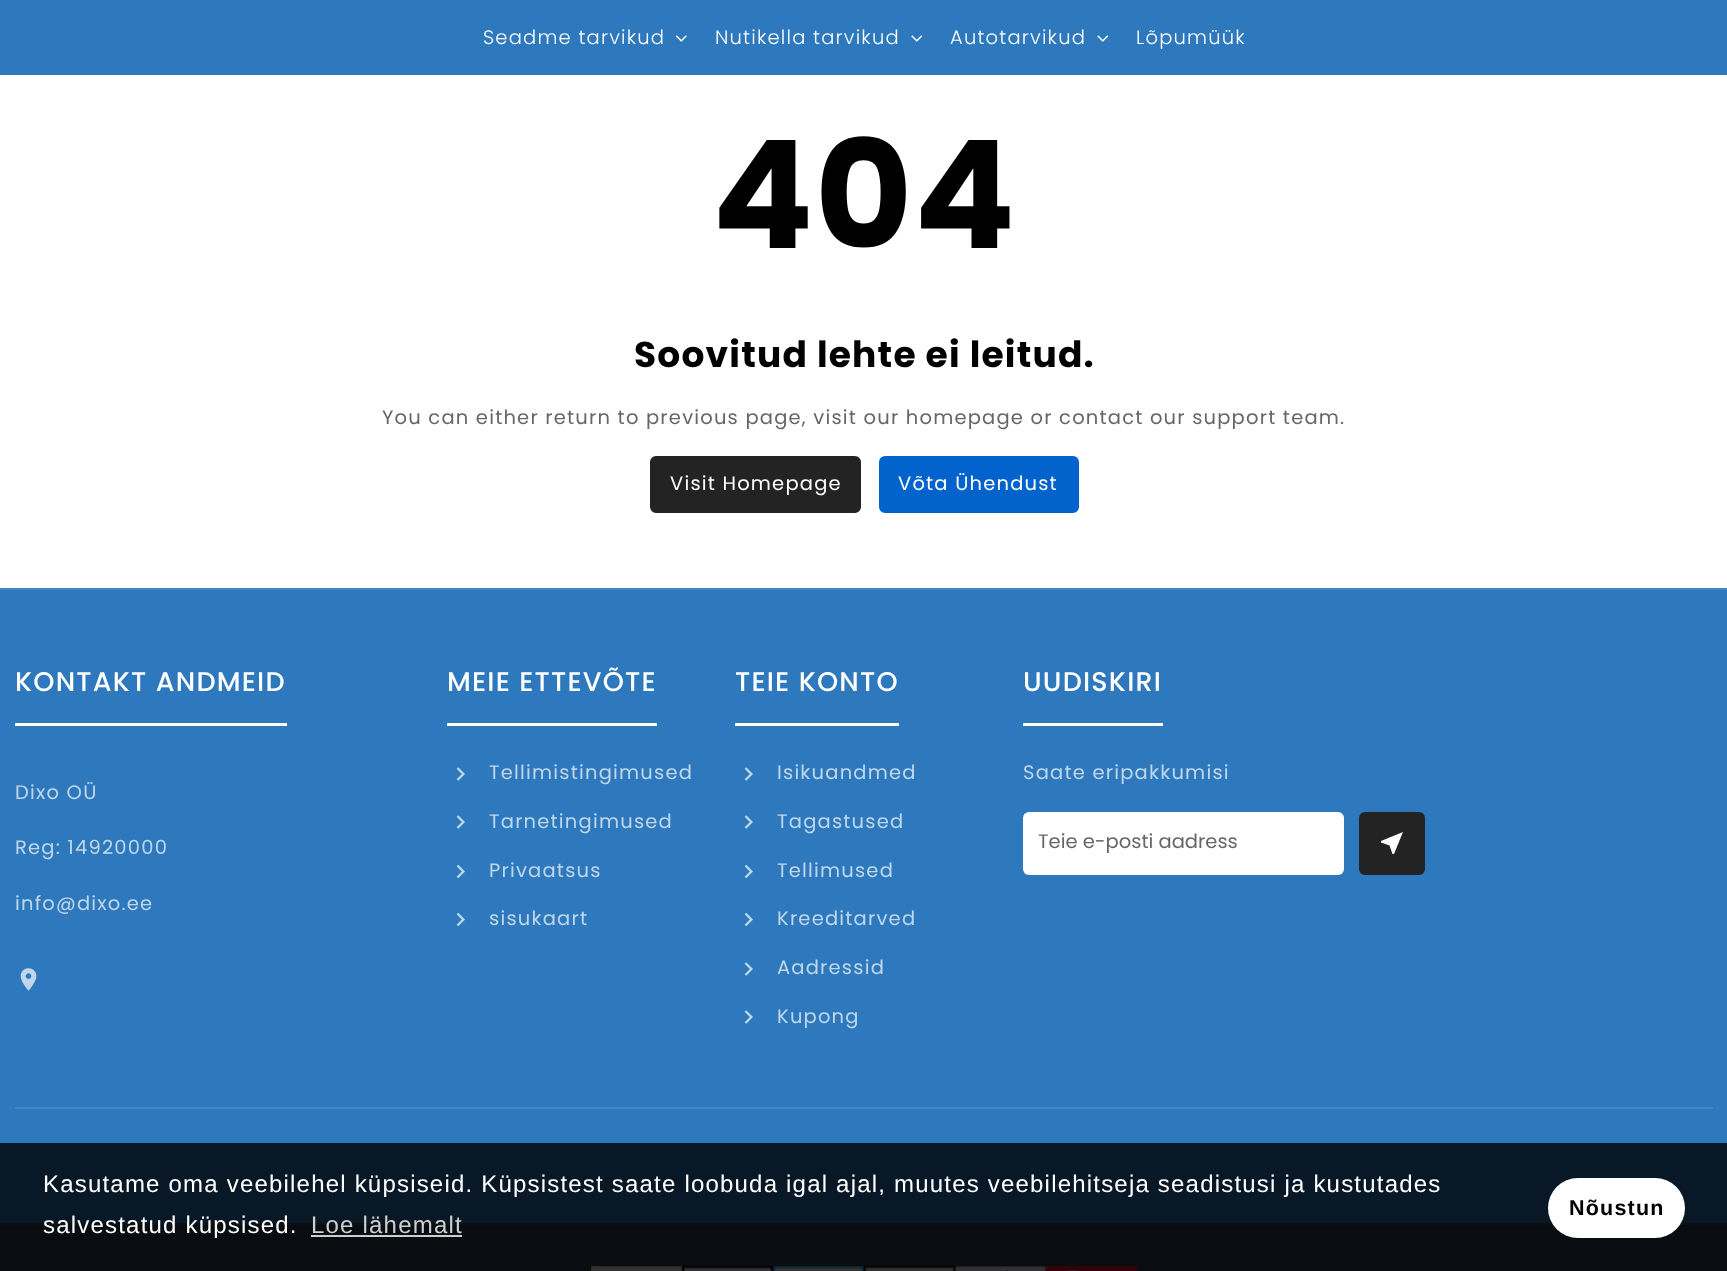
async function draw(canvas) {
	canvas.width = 1727;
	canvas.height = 1271;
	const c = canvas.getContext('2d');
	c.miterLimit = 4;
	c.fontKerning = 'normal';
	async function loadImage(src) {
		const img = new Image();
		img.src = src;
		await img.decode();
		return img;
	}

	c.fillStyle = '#fff';
	c.fillRect(0, 0, 1727, 1271);
	c.fillStyle = '#2e79bd';
	c.fillRect(0, 0, 1727, 75);
	c.letterSpacing = '1.2px';
	c.font = '300 19.5px Poppins';
	c.fillStyle = '#fff';
	c.fillText('Seadme tarvikud', 483, 44);
	c.drawImage(await loadImage('img1.png'), 675, 35, 12, 7);
	c.fillText('Nutikella tarvikud', 715, 44);
	c.drawImage(await loadImage('img2.png'), 911, 35, 12, 7);
	c.fillText('Autotarvikud', 950, 44);
	c.drawImage(await loadImage('img2.png'), 1097, 35, 12, 7);
	c.fillText('Lõpumüük', 1136, 44);
	c.font = 'bold 150px Poppins';
	c.fillStyle = '#000';
	c.fillText('404', 712, 248);
	c.font = 'bold 36px Poppins';
	c.fillText('Soovitud lehte ei leitud.', 634, 367);
	c.font = '19.5px Poppins';
	c.fillStyle = '#666';
	c.fillText('You can either return to previous page, visit our homepage or contact our support team.', 382, 424);
	c.fillStyle = '#232323';
	c.beginPath();
	c.roundRect(651, 457, 209, 55, 5);
	c.fill();
	c.strokeStyle = '#232323';
	c.lineWidth = 2;
	c.stroke();
	c.fillStyle = '#fff';
	c.fillText('Visit Homepage', 670, 490);
	c.fillStyle = '#0363cd';
	c.beginPath();
	c.roundRect(880, 457, 198, 55, 5);
	c.fill();
	c.strokeStyle = '#0363cd';
	c.stroke();
	c.fillStyle = '#fff';
	c.fillText('Võta Ühendust', 898, 490);
	for (const [x, y, w, h, color] of [
		[0, 590, 1727, 553, '#2e79bd'],
		[0, 1143, 1727, 80, '#091826'],
		[0, 588, 1727, 2, '#4386c4'],
		[15, 723, 272, 3, '#fff'],
	]) {
		c.fillStyle = color;
		c.fillRect(x, y, w, h);
	}
	c.font = '500 27px Poppins';
	c.fillText('KONTAKT ANDMEID', 15, 691);
	c.font = '19.5px Poppins';
	c.fillStyle = '#c0d7eb';
	for (const [text, x, y] of [
		['Dixo OÜ', 15, 799],
		['Reg: 14920000', 15, 854],
		['info@dixo.ee', 15, 910],
	]) {
		c.fillText(text, x, y);
	}
	c.drawImage(await loadImage('img3.png'), 20, 968, 17, 23);
	c.fillStyle = '#fff';
	c.fillRect(447, 723, 210, 3);
	c.font = '500 27px Poppins';
	c.fillText('MEIE ETTEVÕTE', 447, 691);
	c.drawImage(await loadImage('img4.png'), 456, 767, 9, 14);
	c.font = '19.5px Poppins';
	c.fillStyle = '#c0d7eb';
	c.fillText('Tellimistingimused', 489, 779);
	c.drawImage(await loadImage('img4.png'), 456, 815, 9, 14);
	c.fillText('Tarnetingimused', 489, 828);
	c.drawImage(await loadImage('img5.png'), 456, 864, 9, 15);
	c.fillText('Privaatsus', 489, 877);
	c.drawImage(await loadImage('img5.png'), 456, 912, 9, 15);
	c.fillText('sisukaart', 489, 925);
	c.fillStyle = '#fff';
	c.fillRect(735, 723, 164, 3);
	c.font = '500 27px Poppins';
	c.fillText('TEIE KONTO', 735, 691);
	c.drawImage(await loadImage('img4.png'), 744, 767, 9, 14);
	c.font = '19.5px Poppins';
	c.fillStyle = '#c0d7eb';
	c.fillText('Isikuandmed', 777, 779);
	c.drawImage(await loadImage('img4.png'), 744, 815, 9, 14);
	c.fillText('Tagastused', 777, 828);
	c.drawImage(await loadImage('img5.png'), 744, 864, 9, 15);
	c.fillText('Tellimused', 777, 877);
	c.drawImage(await loadImage('img5.png'), 744, 912, 9, 15);
	c.fillText('Kreeditarved', 777, 925);
	c.drawImage(await loadImage('img4.png'), 744, 962, 9, 14);
	c.fillText('Aadressid', 777, 974);
	c.drawImage(await loadImage('img4.png'), 744, 1010, 9, 14);
	c.fillText('Kupong', 777, 1023);
	c.fillStyle = '#fff';
	c.fillRect(1023, 723, 140, 3);
	c.font = '500 27px Poppins';
	c.fillText('UUDISKIRI', 1023, 691);
	c.font = '19.5px Poppins';
	c.fillStyle = '#c0d7eb';
	c.fillText('Saate eripakkumisi', 1023, 779);
	c.fillStyle = '#fff';
	c.beginPath();
	c.roundRect(1023, 812, 321, 63, 6);
	c.fill();
	c.letterSpacing = '0px';
	c.fillStyle = '#666';
	c.fillText('Teie e-posti aadress', 1038, 848);
	c.fillStyle = '#232323';
	c.beginPath();
	c.roundRect(1359, 812, 66, 63, 6);
	c.fill();
	c.fillStyle = '#fff';
	c.beginPath();
	c.moveTo(1403, 832);
	c.lineTo(1394, 854);
	c.lineTo(1392.5, 854);
	c.lineTo(1389.5, 845.5);
	c.lineTo(1381, 842.5);
	c.lineTo(1381, 841);
	c.closePath();
	c.fill();
	for (const [x, y, w, h, color] of [
		[15, 1107, 1698, 2, '#4386c4'],
		[0, 1225, 1727, 46, '#090c10'],
		[0, 1223, 1727, 2, '#0d1014'],
	]) {
		c.fillStyle = color;
		c.fillRect(x, y, w, h);
	}
	c.drawImage(await loadImage('img6.png'), 591, 1266, 546, 5);
	c.letterSpacing = '1.2px';
	c.font = '24px Liberation Sans';
	c.fillStyle = '#fff';
	c.fillText('Kasutame oma veebilehel küpsiseid. Küpsistest saate loobuda igal ajal, muutes veebilehitseja seadistusi ja kustutades', 43, 1192);
	c.fillText('salvestatud küpsised.', 43, 1233);
	c.fillStyle = '#cecfd1';
	c.fillText('Loe lähemalt', 311, 1233);
	c.fillStyle = '#cececf';
	c.fillRect(311, 1235, 151, 2);
	c.fillStyle = '#fff';
	c.beginPath();
	c.roundRect(1548, 1178, 137, 60, 30);
	c.fill();
	c.font = 'bold 21.5px Liberation Sans';
	c.fillStyle = '#000';
	c.fillText('Nõustun', 1569, 1215);
}

draw(document.querySelector('canvas'));
